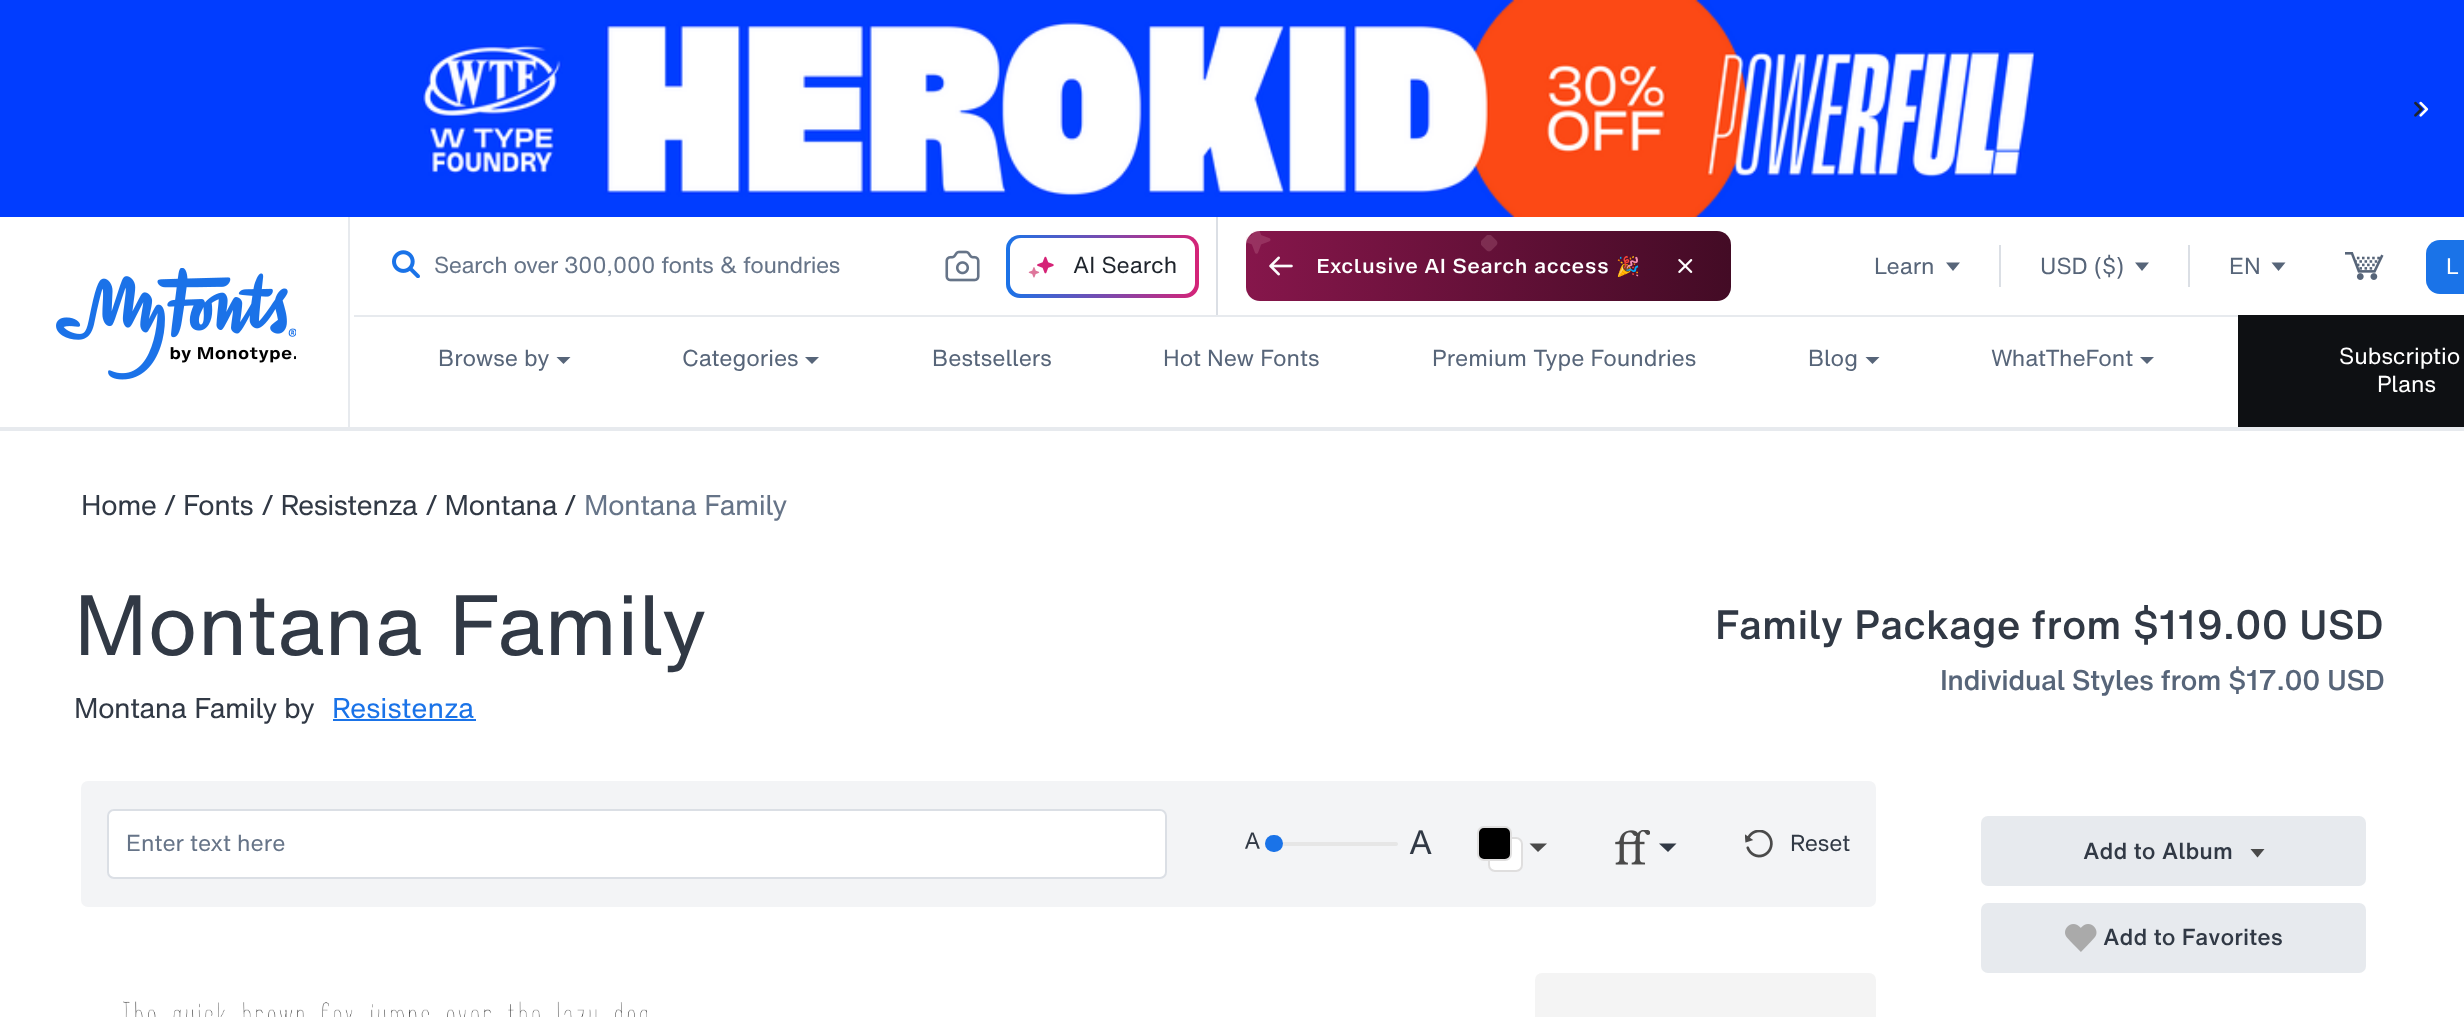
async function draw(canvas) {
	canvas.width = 2464;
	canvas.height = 1017;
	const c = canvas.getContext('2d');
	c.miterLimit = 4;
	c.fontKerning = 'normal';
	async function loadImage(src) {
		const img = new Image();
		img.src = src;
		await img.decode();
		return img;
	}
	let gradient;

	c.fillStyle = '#fff';
	c.fillRect(0, 0, 2464, 1017);
	c.fillStyle = '#e7eaee';
	c.fillRect(0, 427, 2464, 4);
	c.fillStyle = '#013dff';
	c.fillRect(0, 0, 2464, 217);
	c.drawImage(await loadImage('img1.png'), 422, 0, 1613, 217);
	c.drawImage(await loadImage('img2.png'), 2414, 101, 15, 16);
	c.fillStyle = '#e7eaee';
	c.fillRect(348, 217, 2, 210);
	c.drawImage(await loadImage('img3.png'), 56, 268, 240, 112);
	c.fillStyle = '#dbdfe5';
	c.fillRect(1216, 217, 2, 98);
	c.drawImage(await loadImage('img4.png'), 392, 250, 28, 28);
	c.letterSpacing = '-0.45px';
	c.wordSpacing = '0.5px';
	c.font = '22.75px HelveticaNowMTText';
	c.fillStyle = '#667488';
	c.fillText('Search over 300,000 fonts & foundries', 434, 273);
	c.drawImage(await loadImage('img5.png'), 945, 250, 35, 32);
	gradient = c.createLinearGradient(1006, 266, 1199, 266);
	gradient.addColorStop(0, '#1a73e8');
	gradient.addColorStop(1, '#d52377');
	c.fillStyle = gradient;
	c.beginPath();
	c.roundRect(1006, 235, 193, 63, 14);
	c.fill();
	c.fillStyle = '#fff';
	c.beginPath();
	c.roundRect(1010, 238, 185, 56, 11);
	c.fill();
	c.drawImage(await loadImage('img6.png'), 1028, 256, 26, 22);
	c.letterSpacing = '0px';
	c.wordSpacing = '0px';
	c.fillStyle = '#1e242c';
	c.fillText('AI Search', 1073, 273);
	gradient = c.createLinearGradient(1246, 266, 1731, 266);
	gradient.addColorStop(0, '#86164b');
	gradient.addColorStop(1, '#430b25');
	c.fillStyle = gradient;
	c.beginPath();
	c.roundRect(1246, 231, 485, 70, 14);
	c.fill();
	c.drawImage(await loadImage('img7.png'), 1246, 231, 25, 23);
	c.drawImage(await loadImage('img8.png'), 1481, 235, 17, 17);
	c.drawImage(await loadImage('img9.png'), 1269, 256, 24, 20);
	c.font = '500 19.25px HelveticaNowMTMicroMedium';
	c.fillStyle = '#fff';
	c.fillText('Exclusive AI Search access', 1316, 273);
	c.font = '19.25px Noto Color Emoji';
	c.fillText('🎉', 1616, 273);
	c.drawImage(await loadImage('img10.png'), 1678, 259, 15, 14);
	c.font = '22.75px HelveticaNowMTText';
	c.fillStyle = '#576579';
	c.fillText('Learn', 1874, 274);
	c.beginPath();
	c.moveTo(1946, 262.5);
	c.lineTo(1960, 262.5);
	c.lineTo(1953, 271);
	c.closePath();
	c.fill();
	c.fillStyle = '#dbdfe5';
	c.fillRect(1999, 245, 2, 42);
	c.fillStyle = '#576579';
	c.fillText('USD ($)', 2040, 274);
	c.beginPath();
	c.moveTo(2135, 262.5);
	c.lineTo(2149, 262.5);
	c.lineTo(2142, 271);
	c.closePath();
	c.fill();
	c.fillStyle = '#dbdfe5';
	c.fillRect(2188, 245, 2, 42);
	c.fillStyle = '#576579';
	c.fillText('EN', 2229, 274);
	c.beginPath();
	c.moveTo(2271.5, 262.5);
	c.lineTo(2285.5, 262.5);
	c.lineTo(2278.5, 271);
	c.closePath();
	c.fill();
	c.drawImage(await loadImage('img11.png'), 2345, 252, 39, 28);
	c.fillStyle = '#1a73e8';
	c.beginPath();
	c.roundRect(2426, 240, 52, 54, 14);
	c.fill();
	c.font = '23px Liberation Sans';
	c.fillStyle = '#fff';
	c.fillText('L', 2446, 274);
	c.fillStyle = '#e7eaee';
	c.fillRect(354, 315, 1884, 2);
	c.font = '22.75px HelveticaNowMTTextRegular';
	c.fillStyle = '#576579';
	c.fillText('Browse by', 438, 366);
	c.beginPath();
	c.moveTo(556.5, 357);
	c.lineTo(570.5, 357);
	c.lineTo(563.5, 364);
	c.closePath();
	c.fill();
	c.fillText('Categories', 682, 366);
	c.beginPath();
	c.moveTo(805, 357);
	c.lineTo(819, 357);
	c.lineTo(812, 364);
	c.closePath();
	c.fill();
	for (const [text, x, y] of [
		['Bestsellers', 932, 366],
		['Hot New Fonts', 1163, 366],
		['Premium Type Foundries', 1432, 366],
		['Blog', 1808, 366],
	]) {
		c.fillText(text, x, y);
	}
	c.beginPath();
	c.moveTo(1865.5, 357);
	c.lineTo(1879.5, 357);
	c.lineTo(1872.5, 364);
	c.closePath();
	c.fill();
	c.fillText('WhatTheFont', 1991, 366);
	c.beginPath();
	c.moveTo(2140, 357);
	c.lineTo(2154, 357);
	c.lineTo(2147, 364);
	c.closePath();
	c.fill();
	c.fillStyle = '#0e1013';
	c.fillRect(2238, 315, 226, 112);
	c.fillStyle = '#fff';
	c.fillText('Subscriptio', 2339, 364);
	c.fillText('Plans', 2377, 392);
	c.letterSpacing = '-0.55px';
	c.font = '28px HelveticaNowMTText';
	c.fillStyle = '#313945';
	for (const [text, x, y] of [
		['Home / Fonts', 81, 515],
		['/ Resistenza', 261, 515],
		['/ Montana /', 425, 515],
	]) {
		c.fillText(text, x, y);
	}
	c.wordSpacing = '1px';
	c.fillStyle = '#667488';
	c.fillText('Montana Family', 584, 515);
	c.letterSpacing = '0px';
	c.wordSpacing = '4px';
	c.font = '84px HelveticaNowMTText';
	c.fillStyle = '#313945';
	c.fillText('Montana Family', 74, 655);
	c.letterSpacing = '-0.55px';
	c.wordSpacing = '1px';
	c.font = '28px HelveticaNowMTText';
	c.fillText('Montana Family', 74, 718);
	c.wordSpacing = '0px';
	c.fillText('by', 284, 718);
	c.letterSpacing = '0px';
	c.fillStyle = '#1a73e8';
	c.fillText('Resistenza', 332, 718);
	c.fillRect(333, 719, 143, 2);
	c.font = '500 40.25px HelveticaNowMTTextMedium';
	c.fillStyle = '#313945';
	c.fillText('Family Package from $119.00 USD', 1715, 639);
	c.letterSpacing = '-0.55px';
	c.font = '500 28px HelveticaNowMTTextMedium';
	c.fillStyle = '#576579';
	c.fillText('Individual Styles from $17.00 USD', 1940, 690);
	c.fillStyle = '#f3f4f6';
	c.beginPath();
	c.roundRect(81, 781, 1795, 126, 7);
	c.fill();
	c.fillStyle = '#fff';
	c.beginPath();
	c.roundRect(108, 810, 1058, 68, 6);
	c.fill();
	c.strokeStyle = '#dbdfe5';
	c.lineWidth = 2;
	c.stroke();
	c.letterSpacing = '0px';
	c.font = '22.75px HelveticaNowMTText';
	c.fillStyle = '#667488';
	c.fillText('Enter text here', 126, 851);
	c.drawImage(await loadImage('img12.png'), 1245, 832, 15, 17);
	c.fillStyle = '#e6e6e6';
	c.beginPath();
	c.roundRect(1265, 842, 133, 4, 2);
	c.fill();
	c.fillStyle = '#1a73e8';
	c.beginPath();
	c.roundRect(1265, 835, 18, 17, 8.5);
	c.fill();
	c.drawImage(await loadImage('img13.png'), 1409, 830, 23, 24);
	c.fillStyle = '#fff';
	c.beginPath();
	c.roundRect(1489, 838, 33, 33, 6);
	c.fill();
	c.strokeStyle = '#dfdede';
	c.stroke();
	c.fillStyle = '#000';
	c.beginPath();
	c.roundRect(1478, 827, 33, 33, 6);
	c.fill();
	c.stroke();
	c.fillStyle = '#4a4a4a';
	c.beginPath();
	c.moveTo(1529.5, 843.5);
	c.lineTo(1547, 843.5);
	c.lineTo(1538, 852);
	c.closePath();
	c.fill();
	c.drawImage(await loadImage('img14.png'), 1615, 830, 35, 35);
	c.fillStyle = '#313945';
	c.beginPath();
	c.moveTo(1659, 843.5);
	c.lineTo(1676.5, 843.5);
	c.lineTo(1668, 852);
	c.closePath();
	c.fill();
	c.drawImage(await loadImage('img15.png'), 1745, 830, 28, 28);
	c.fillText('Reset', 1790, 851);
	c.drawImage(await loadImage('img16.png'), 123, 1001, 524, 16);
	c.fillStyle = '#f4f4f4';
	c.beginPath();
	c.roundRect(1535, 973, 341, 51, 7);
	c.fill();
	c.fillStyle = '#e7eaee';
	c.beginPath();
	c.roundRect(1981, 816, 385, 70, 7);
	c.fill();
	c.font = '500 22.75px HelveticaNowMTTextMedium';
	c.fillStyle = '#313945';
	c.fillText('Add to Album', 2083, 859);
	c.fillStyle = '#4a4a4a';
	c.beginPath();
	c.moveTo(2250.5, 849);
	c.lineTo(2264.5, 849);
	c.lineTo(2257.5, 857.5);
	c.closePath();
	c.fill();
	c.fillStyle = '#e7eaee';
	c.beginPath();
	c.roundRect(1981, 903, 385, 70, 7);
	c.fill();
	c.drawImage(await loadImage('img17.png'), 2065, 924, 32, 28);
	c.fillStyle = '#313945';
	c.fillText('Add to Favorites', 2103, 945);
}

draw(document.querySelector('canvas'));
